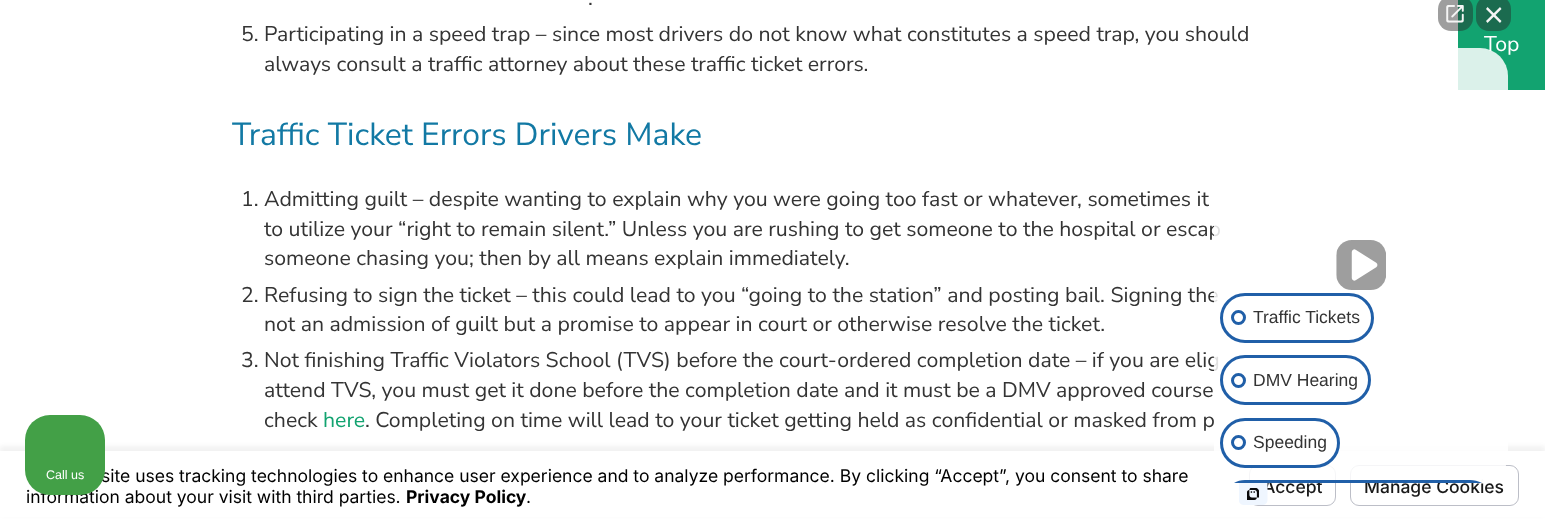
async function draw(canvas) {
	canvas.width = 1545;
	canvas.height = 519;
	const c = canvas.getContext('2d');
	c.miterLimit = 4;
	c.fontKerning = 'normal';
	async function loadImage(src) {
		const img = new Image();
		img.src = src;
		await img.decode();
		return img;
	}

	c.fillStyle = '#fff';
	c.fillRect(0, 0, 1545, 519);
	c.font = '21.25px Nunito Sans';
	c.fillStyle = '#343434';
	for (const [text, x, y] of [
		['.', 588, 5],
		['5. Participating in a speed trap – since most drivers do not know what constitutes a speed trap, you should', 241, 41],
		['always consult a traffic attorney about these traffic ticket errors.', 264, 71],
	]) {
		c.fillText(text, x, y);
	}
	c.font = '31.9px Nunito Sans';
	c.fillStyle = '#1279a4';
	c.fillText('Traffic Ticket Errors Drivers Make', 232, 145);
	c.font = '21.25px Nunito Sans';
	c.fillStyle = '#343434';
	for (const [text, x, y] of [
		['1. Admitting guilt – despite wanting to explain why you were going too fast or whatever, sometimes it', 241, 206],
		['to utilize your “right to remain silent.” Unless you are rushing to get someone to the hospital or escap', 264, 236],
		['someone chasing you; then by all means explain immediately.', 264, 265],
		['2. Refusing to sign the ticket – this could lead to you “going to the station” and posting bail. Signing the', 241, 302],
		['not an admission of guilt but a promise to appear in court or otherwise resolve the ticket.', 264, 331],
		['3. Not finishing Traffic Violators School (TVS) before the court-ordered completion date – if you are elig', 241, 367],
		['attend TVS, you must get it done before the completion date and it must be a DMV approved course', 264, 397],
		['check', 264, 427],
	]) {
		c.fillText(text, x, y);
	}
	c.fillStyle = '#12a370';
	c.fillText('here', 323, 427);
	c.fillStyle = '#343434';
	c.fillText('. Completing on time will lead to your ticket getting held as confidential or masked from p', 365, 427);
	c.fillStyle = '#12a370';
	c.fillRect(1458, 0, 87, 90);
	c.fillStyle = '#fff';
	c.fillText('Top', 1484, 51);
	c.fillStyle = '#0000000d';
	c.filter = 'blur(2px)';
	c.beginPath();
	c.rect(0, 446, 1545, 69);
	c.fill();
	c.filter = 'none';
	c.fillStyle = '#fff';
	c.fillRect(0, 451, 1545, 66);
	c.beginPath();
	c.roundRect(1249.5, 465.5, 86, 40, 8.5);
	c.strokeStyle = '#bcbec7';
	c.stroke();
	c.font = '500 17.5px Inter';
	c.fillStyle = '#191919';
	c.fillText('Accept', 1263, 493);
	c.beginPath();
	c.roundRect(1350.5, 465.5, 168, 40, 8.5);
	c.stroke();
	c.fillText('Manage Cookies', 1364, 493);
	c.fillStyle = '#ffffffd9';
	c.beginPath();
	c.roundRect(1214, 48, 294, 435, 28);
	c.fill();
	c.fillStyle = '#27272773';
	c.beginPath();
	c.roundRect(1438, -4, 35, 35, 13);
	c.fill();
	c.drawImage(await loadImage('img1.png'), 1446, 5, 18, 18);
	c.fillStyle = '#1b6b4f';
	c.beginPath();
	c.roundRect(1476, -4, 35, 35, 13);
	c.fill();
	c.fillStyle = '#f5f5f5';
	c.beginPath();
	c.moveTo(1486, 9);
	c.lineTo(1487.5, 7);
	c.lineTo(1501.5, 21);
	c.lineTo(1500, 23);
	c.closePath();
	c.fill();
	c.beginPath();
	c.moveTo(1500, 7);
	c.lineTo(1501.5, 9);
	c.lineTo(1487.5, 23);
	c.lineTo(1486, 21);
	c.closePath();
	c.fill();
	c.drawImage(await loadImage('img2.png'), 1336, 240, 50, 50);
	c.beginPath();
	c.roundRect(1221.5, 294.5, 151, 47, 23.5);
	c.strokeStyle = '#205fa8';
	c.lineWidth = 3;
	c.stroke();
	c.beginPath();
	c.arc(1238.5, 317.5, 6, 0, 2 * Math.PI);
	c.stroke();
	c.font = '17.5px Liberation Sans';
	c.fillStyle = '#343434';
	c.fillText('Traffic Tickets', 1253, 323);
	c.beginPath();
	c.roundRect(1221.5, 356.5, 148, 47, 23.5);
	c.stroke();
	c.beginPath();
	c.arc(1238.5, 380.5, 6, 0, 2 * Math.PI);
	c.stroke();
	c.fillText('DMV Hearing', 1253, 386);
	c.fillStyle = '#ffffffd9';
	c.beginPath();
	c.roundRect(1221.5, 419.5, 117, 47, 23.5);
	c.fill();
	c.stroke();
	c.beginPath();
	c.arc(1238.5, 442.5, 6, 0, 2 * Math.PI);
	c.stroke();
	c.fillStyle = '#343434';
	c.fillText('Speeding', 1253, 448);
	c.save();
	c.beginPath();
	c.roundRect(1214, 105, 294, 378, [0, 0, 25, 25]);
	c.clip();
	c.fillStyle = '#ffffffd9';
	c.beginPath();
	c.roundRect(1220, 480, 275, 3, [25, 25, 0, 0]);
	c.fill();
	c.restore();
	c.fillStyle = '#205fa8';
	c.beginPath();
	c.moveTo(1245, 480);
	c.bezierCurveTo(1241, 480, 1237, 481, 1234, 483);
	c.lineTo(1239, 483);
	c.lineTo(1482, 483);
	c.bezierCurveTo(1478, 481, 1474, 480, 1470, 480);
	c.closePath();
	c.fill();
	c.drawImage(await loadImage('img3.png'), 1239, 483, 29, 22);
	c.font = '17.5px Inter';
	c.fillStyle = '#000';
	c.fillText('site uses tracking technologies to enhance user experience and to analyze performance. By clicking “Accept”, you consent to share', 101, 482);
	c.fillText('information about your visit with third parties.', 26, 503);
	c.font = 'bold 17.5px Inter';
	c.fillText('Privacy Policy', 406, 503);
	c.font = '17.5px Inter';
	c.fillText('.', 526, 503);
	c.fillStyle = '#43a047';
	c.beginPath();
	c.roundRect(25, 415, 80, 80, 25);
	c.fill();
	c.font = '12.5px Liberation Sans';
	c.fillStyle = '#fff';
	c.fillText('Call us', 46, 479);
}

draw(document.querySelector('canvas'));
